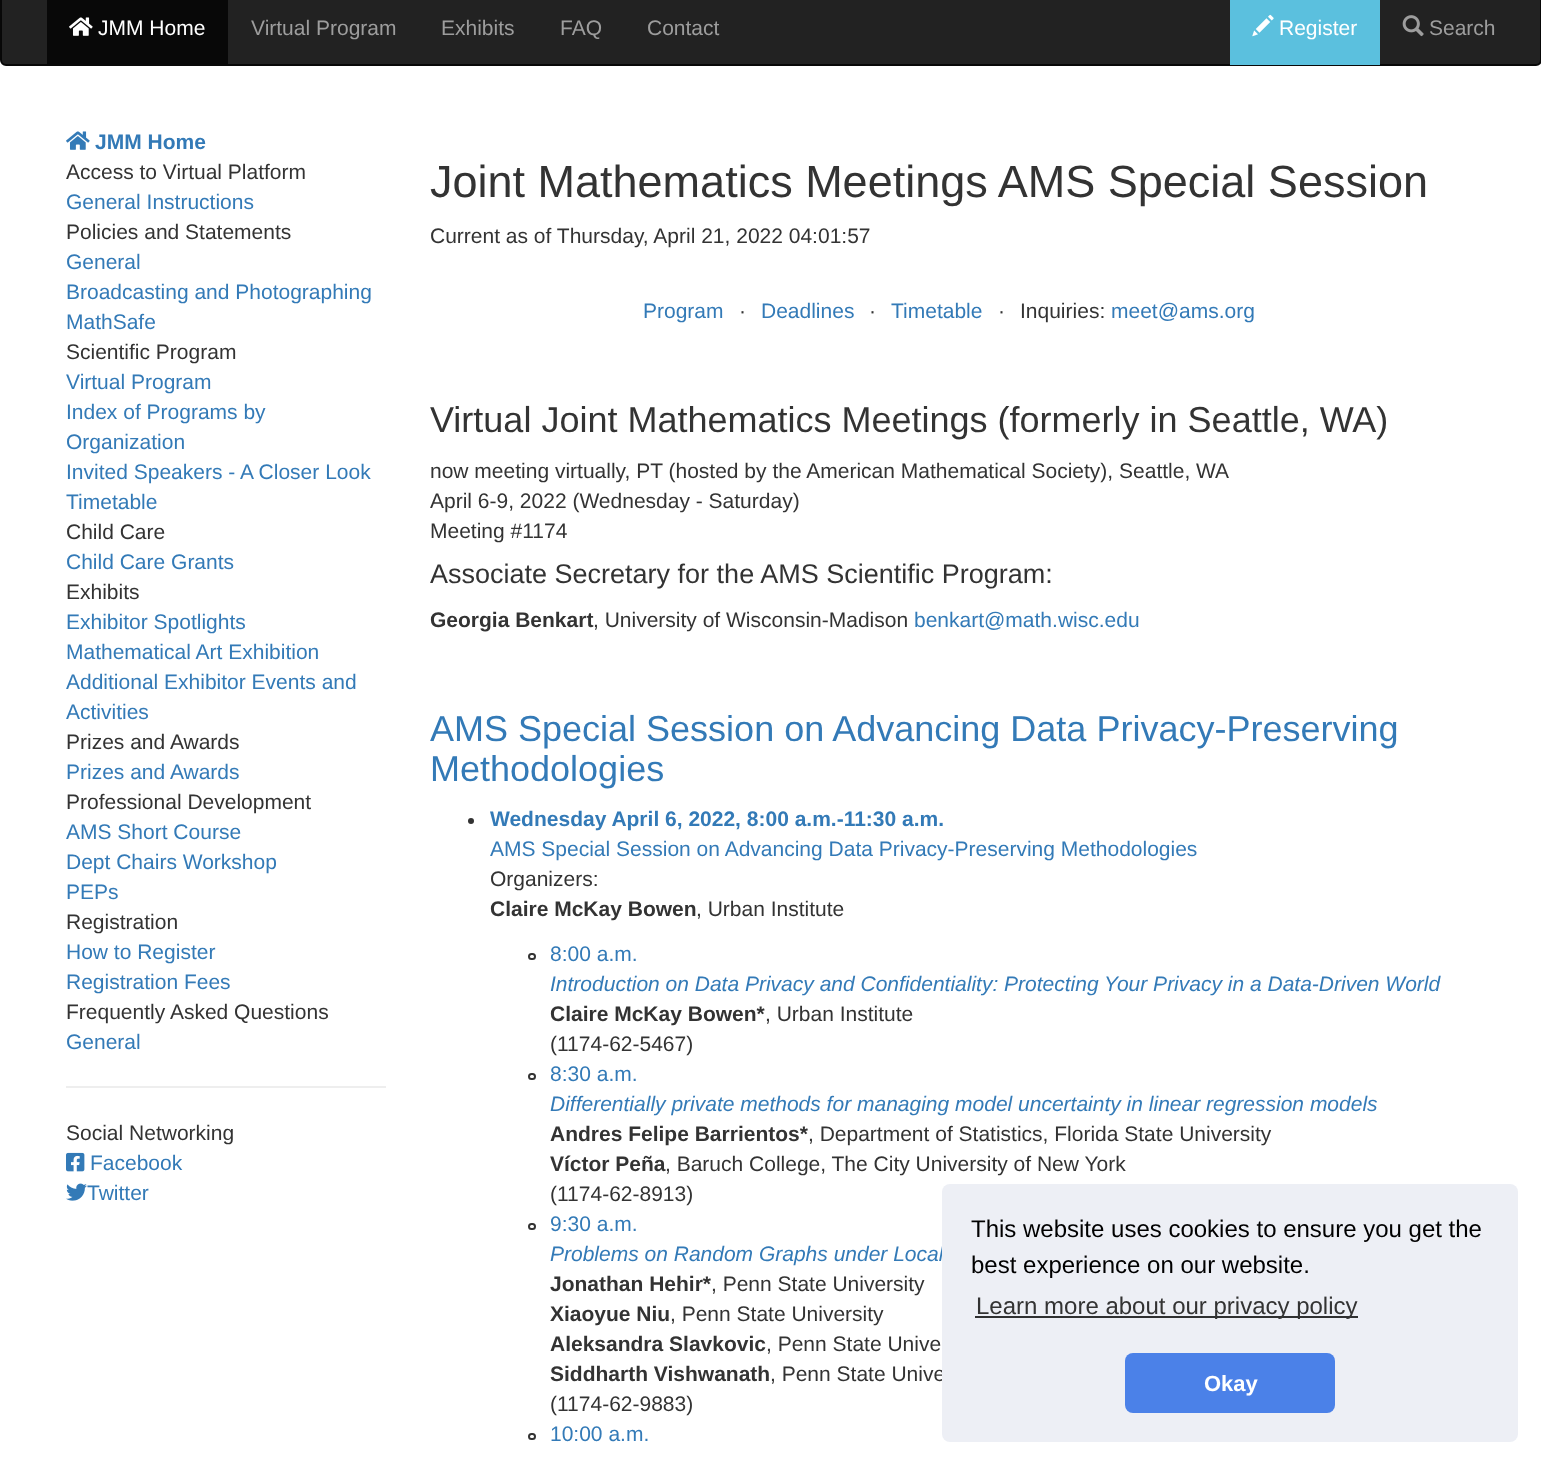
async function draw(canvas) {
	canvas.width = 1541;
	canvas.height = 1465;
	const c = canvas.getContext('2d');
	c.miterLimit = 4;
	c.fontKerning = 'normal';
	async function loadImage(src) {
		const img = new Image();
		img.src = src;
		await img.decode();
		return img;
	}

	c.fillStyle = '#fff';
	c.fillRect(0, 0, 1541, 1465);
	c.fillStyle = '#222';
	c.beginPath();
	c.roundRect(1, -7, 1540, 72, 5);
	c.fill();
	c.strokeStyle = '#080808';
	c.lineWidth = 2;
	c.stroke();
	c.fillStyle = '#080808';
	c.fillRect(47, 0, 181, 64);
	c.drawImage(await loadImage('img1.png'), 69, 17, 24, 19);
	c.font = '21px Liberation Sans';
	c.fillStyle = '#fff';
	c.fillText('JMM Home', 98, 35);
	c.fillStyle = '#9d9d9d';
	for (const [text, x, y] of [
		['Virtual Program', 251, 35],
		['Exhibits', 441, 35],
		['FAQ', 560, 35],
		['Contact', 647, 35],
	]) {
		c.fillText(text, x, y);
	}
	c.fillStyle = '#5bc0de';
	c.fillRect(1230, 0, 150, 65);
	c.drawImage(await loadImage('img2.png'), 1252, 14, 22, 23);
	c.fillStyle = '#fff';
	c.fillText('Register', 1279, 35);
	c.drawImage(await loadImage('img3.png'), 1402, 15, 22, 22);
	c.fillStyle = '#9d9d9d';
	c.fillText('Search', 1429, 35);
	c.drawImage(await loadImage('img4.png'), 66, 131, 24, 19);
	c.font = 'bold 21px Liberation Sans';
	c.fillStyle = '#337ab7';
	c.fillText('JMM Home', 95, 149);
	c.font = '21px Liberation Sans';
	c.fillStyle = '#333';
	c.fillText('Access to Virtual Platform', 66, 179);
	c.fillStyle = '#337ab7';
	c.fillText('General Instructions', 66, 209);
	c.fillStyle = '#333';
	c.fillText('Policies and Statements', 66, 239);
	c.fillStyle = '#337ab7';
	for (const [text, x, y] of [
		['General', 66, 269],
		['Broadcasting and Photographing', 66, 299],
		['MathSafe', 66, 329],
	]) {
		c.fillText(text, x, y);
	}
	c.fillStyle = '#333';
	c.fillText('Scientific Program', 66, 359);
	c.fillStyle = '#337ab7';
	for (const [text, x, y] of [
		['Virtual Program', 66, 389],
		['Index of Programs by', 66, 419],
		['Organization', 66, 449],
		['Invited Speakers - A Closer Look', 66, 479],
		['Timetable', 66, 509],
	]) {
		c.fillText(text, x, y);
	}
	c.fillStyle = '#333';
	c.fillText('Child Care', 66, 539);
	c.fillStyle = '#337ab7';
	c.fillText('Child Care Grants', 66, 569);
	c.fillStyle = '#333';
	c.fillText('Exhibits', 66, 599);
	c.fillStyle = '#337ab7';
	for (const [text, x, y] of [
		['Exhibitor Spotlights', 66, 629],
		['Mathematical Art Exhibition', 66, 659],
		['Additional Exhibitor Events and', 66, 689],
		['Activities', 66, 719],
	]) {
		c.fillText(text, x, y);
	}
	c.fillStyle = '#333';
	c.fillText('Prizes and Awards', 66, 749);
	c.fillStyle = '#337ab7';
	c.fillText('Prizes and Awards', 66, 779);
	c.fillStyle = '#333';
	c.fillText('Professional Development', 66, 809);
	c.fillStyle = '#337ab7';
	for (const [text, x, y] of [
		['AMS Short Course', 66, 839],
		['Dept Chairs Workshop', 66, 869],
		['PEPs', 66, 899],
	]) {
		c.fillText(text, x, y);
	}
	c.fillStyle = '#333';
	c.fillText('Registration', 66, 929);
	c.fillStyle = '#337ab7';
	c.fillText('How to Register', 66, 959);
	c.fillText('Registration Fees', 66, 989);
	c.fillStyle = '#333';
	c.fillText('Frequently Asked Questions', 66, 1019);
	c.fillStyle = '#337ab7';
	c.fillText('General', 66, 1049);
	c.fillStyle = '#eee';
	c.fillRect(66, 1086, 320, 2);
	c.fillStyle = '#333';
	c.fillText('Social Networking', 66, 1140);
	c.drawImage(await loadImage('img5.png'), 66, 1152, 19, 20);
	c.fillStyle = '#337ab7';
	c.fillText('Facebook', 90, 1170);
	c.drawImage(await loadImage('img6.png'), 66, 1183, 21, 18);
	c.fillText('Twitter', 87, 1200);
	c.font = '45px Liberation Sans';
	c.fillStyle = '#333';
	c.fillText('Joint Mathematics Meetings AMS Special Session', 430, 197);
	c.font = '21px Liberation Sans';
	c.fillText('Current as of Thursday, April 21, 2022 04:01:57', 430, 243);
	c.fillStyle = '#337ab7';
	c.fillText('Program', 643, 318);
	c.fillStyle = '#333';
	c.fillText('·', 739, 318);
	c.fillStyle = '#337ab7';
	c.fillText('Deadlines', 761, 318);
	c.fillStyle = '#333';
	c.fillText('·', 869, 318);
	c.fillStyle = '#337ab7';
	c.fillText('Timetable', 891, 318);
	c.fillStyle = '#333';
	c.fillText('·', 998, 318);
	c.fillText('Inquiries:', 1020, 318);
	c.fillStyle = '#337ab7';
	c.fillText('meet@ams.org', 1111, 318);
	c.font = '36px Liberation Sans';
	c.fillStyle = '#333';
	c.fillText('Virtual Joint Mathematics Meetings (formerly in Seattle, WA)', 430, 432);
	c.font = '21px Liberation Sans';
	for (const [text, x, y] of [
		['now meeting virtually, PT (hosted by the American Mathematical Society), Seattle, WA', 430, 478],
		['April 6-9, 2022 (Wednesday - Saturday)', 430, 508],
		['Meeting #1174', 430, 538],
	]) {
		c.fillText(text, x, y);
	}
	c.font = '27px Liberation Sans';
	c.fillText('Associate Secretary for the AMS Scientific Program:', 430, 583);
	c.font = 'bold 21px Liberation Sans';
	c.fillText('Georgia Benkart', 430, 627);
	c.font = '21px Liberation Sans';
	c.fillText(', University of Wisconsin-Madison', 593, 627);
	c.fillStyle = '#337ab7';
	c.fillText('benkart@math.wisc.edu', 914, 627);
	c.font = '36px Liberation Sans';
	c.fillText('AMS Special Session on Advancing Data Privacy-Preserving', 430, 741);
	c.fillText('Methodologies', 430, 781);
	c.fillStyle = '#333';
	c.beginPath();
	c.arc(471, 821, 3, 0, 2 * Math.PI);
	c.fill();
	c.font = 'bold 21px Liberation Sans';
	c.fillStyle = '#337ab7';
	c.fillText('Wednesday April 6, 2022, 8:00 a.m.-11:30 a.m.', 490, 826);
	c.font = '21px Liberation Sans';
	c.fillText('AMS Special Session on Advancing Data Privacy-Preserving Methodologies', 490, 856);
	c.fillStyle = '#333';
	c.fillText('Organizers:', 490, 886);
	c.font = 'bold 21px Liberation Sans';
	c.fillText('Claire McKay Bowen', 490, 916);
	c.font = '21px Liberation Sans';
	c.fillText(', Urban Institute', 696, 916);
	c.beginPath();
	c.roundRect(529, 954, 6, 5, 2.5);
	c.strokeStyle = '#333';
	c.stroke();
	c.fillStyle = '#337ab7';
	c.fillText('8:00 a.m.', 550, 961);
	c.font = 'italic 21px Liberation Sans';
	c.fillText('Introduction on Data Privacy and Confidentiality: Protecting Your Privacy in a Data-Driven World', 550, 991);
	c.font = 'bold 21px Liberation Sans';
	c.fillStyle = '#333';
	c.fillText('Claire McKay Bowen*', 550, 1021);
	c.font = '21px Liberation Sans';
	c.fillText(', Urban Institute', 765, 1021);
	c.fillText('(1174-62-5467)', 550, 1051);
	c.beginPath();
	c.roundRect(529, 1074, 6, 5, 2.5);
	c.stroke();
	c.fillStyle = '#337ab7';
	c.fillText('8:30 a.m.', 550, 1081);
	c.font = 'italic 21px Liberation Sans';
	c.fillText('Differentially private methods for managing model uncertainty in linear regression models', 550, 1111);
	c.font = 'bold 21px Liberation Sans';
	c.fillStyle = '#333';
	c.fillText('Andres Felipe Barrientos*', 550, 1141);
	c.font = '21px Liberation Sans';
	c.fillText(', Department of Statistics, Florida State University', 808, 1141);
	c.font = 'bold 21px Liberation Sans';
	c.fillText('Víctor Peña', 550, 1171);
	c.font = '21px Liberation Sans';
	c.fillText(', Baruch College, The City University of New York', 665, 1171);
	c.fillText('(1174-62-8913)', 550, 1201);
	c.beginPath();
	c.roundRect(529, 1224, 6, 5, 2.5);
	c.stroke();
	c.fillStyle = '#337ab7';
	c.fillText('9:30 a.m.', 550, 1231);
	c.font = 'italic 21px Liberation Sans';
	c.fillText('Problems on Random Graphs under Local', 550, 1261);
	c.font = 'bold 21px Liberation Sans';
	c.fillStyle = '#333';
	c.fillText('Jonathan Hehir*', 550, 1291);
	c.font = '21px Liberation Sans';
	c.fillText(', Penn State University', 711, 1291);
	c.font = 'bold 21px Liberation Sans';
	c.fillText('Xiaoyue Niu', 550, 1321);
	c.font = '21px Liberation Sans';
	c.fillText(', Penn State University', 670, 1321);
	c.font = 'bold 21px Liberation Sans';
	c.fillText('Aleksandra Slavkovic', 550, 1351);
	c.font = '21px Liberation Sans';
	c.fillText(', Penn State Unive', 766, 1351);
	c.font = 'bold 21px Liberation Sans';
	c.fillText('Siddharth Vishwanath', 550, 1381);
	c.font = '21px Liberation Sans';
	c.fillText(', Penn State Unive', 770, 1381);
	c.fillText('(1174-62-9883)', 550, 1411);
	c.beginPath();
	c.roundRect(529, 1434, 6, 5, 2.5);
	c.stroke();
	c.fillStyle = '#337ab7';
	c.fillText('10:00 a.m.', 550, 1441);
	c.fillStyle = '#edeff5';
	c.beginPath();
	c.roundRect(942, 1184, 576, 258, 8);
	c.fill();
	c.font = '24px Liberation Sans';
	c.fillStyle = '#000';
	c.fillText('This website uses cookies to ensure you get the', 971, 1237);
	c.fillText('best experience on our website.', 971, 1273);
	c.fillStyle = '#2f3031';
	c.fillRect(975, 1316, 383, 2);
	c.fillStyle = '#333';
	c.fillText('Learn more about our privacy policy', 976, 1314);
	c.fillStyle = '#4b81e8';
	c.beginPath();
	c.roundRect(1125, 1353, 210, 60, 8);
	c.fill();
	c.font = 'bold 22px Liberation Sans';
	c.fillStyle = '#fff';
	c.fillText('Okay', 1204, 1391);
}

draw(document.querySelector('canvas'));
